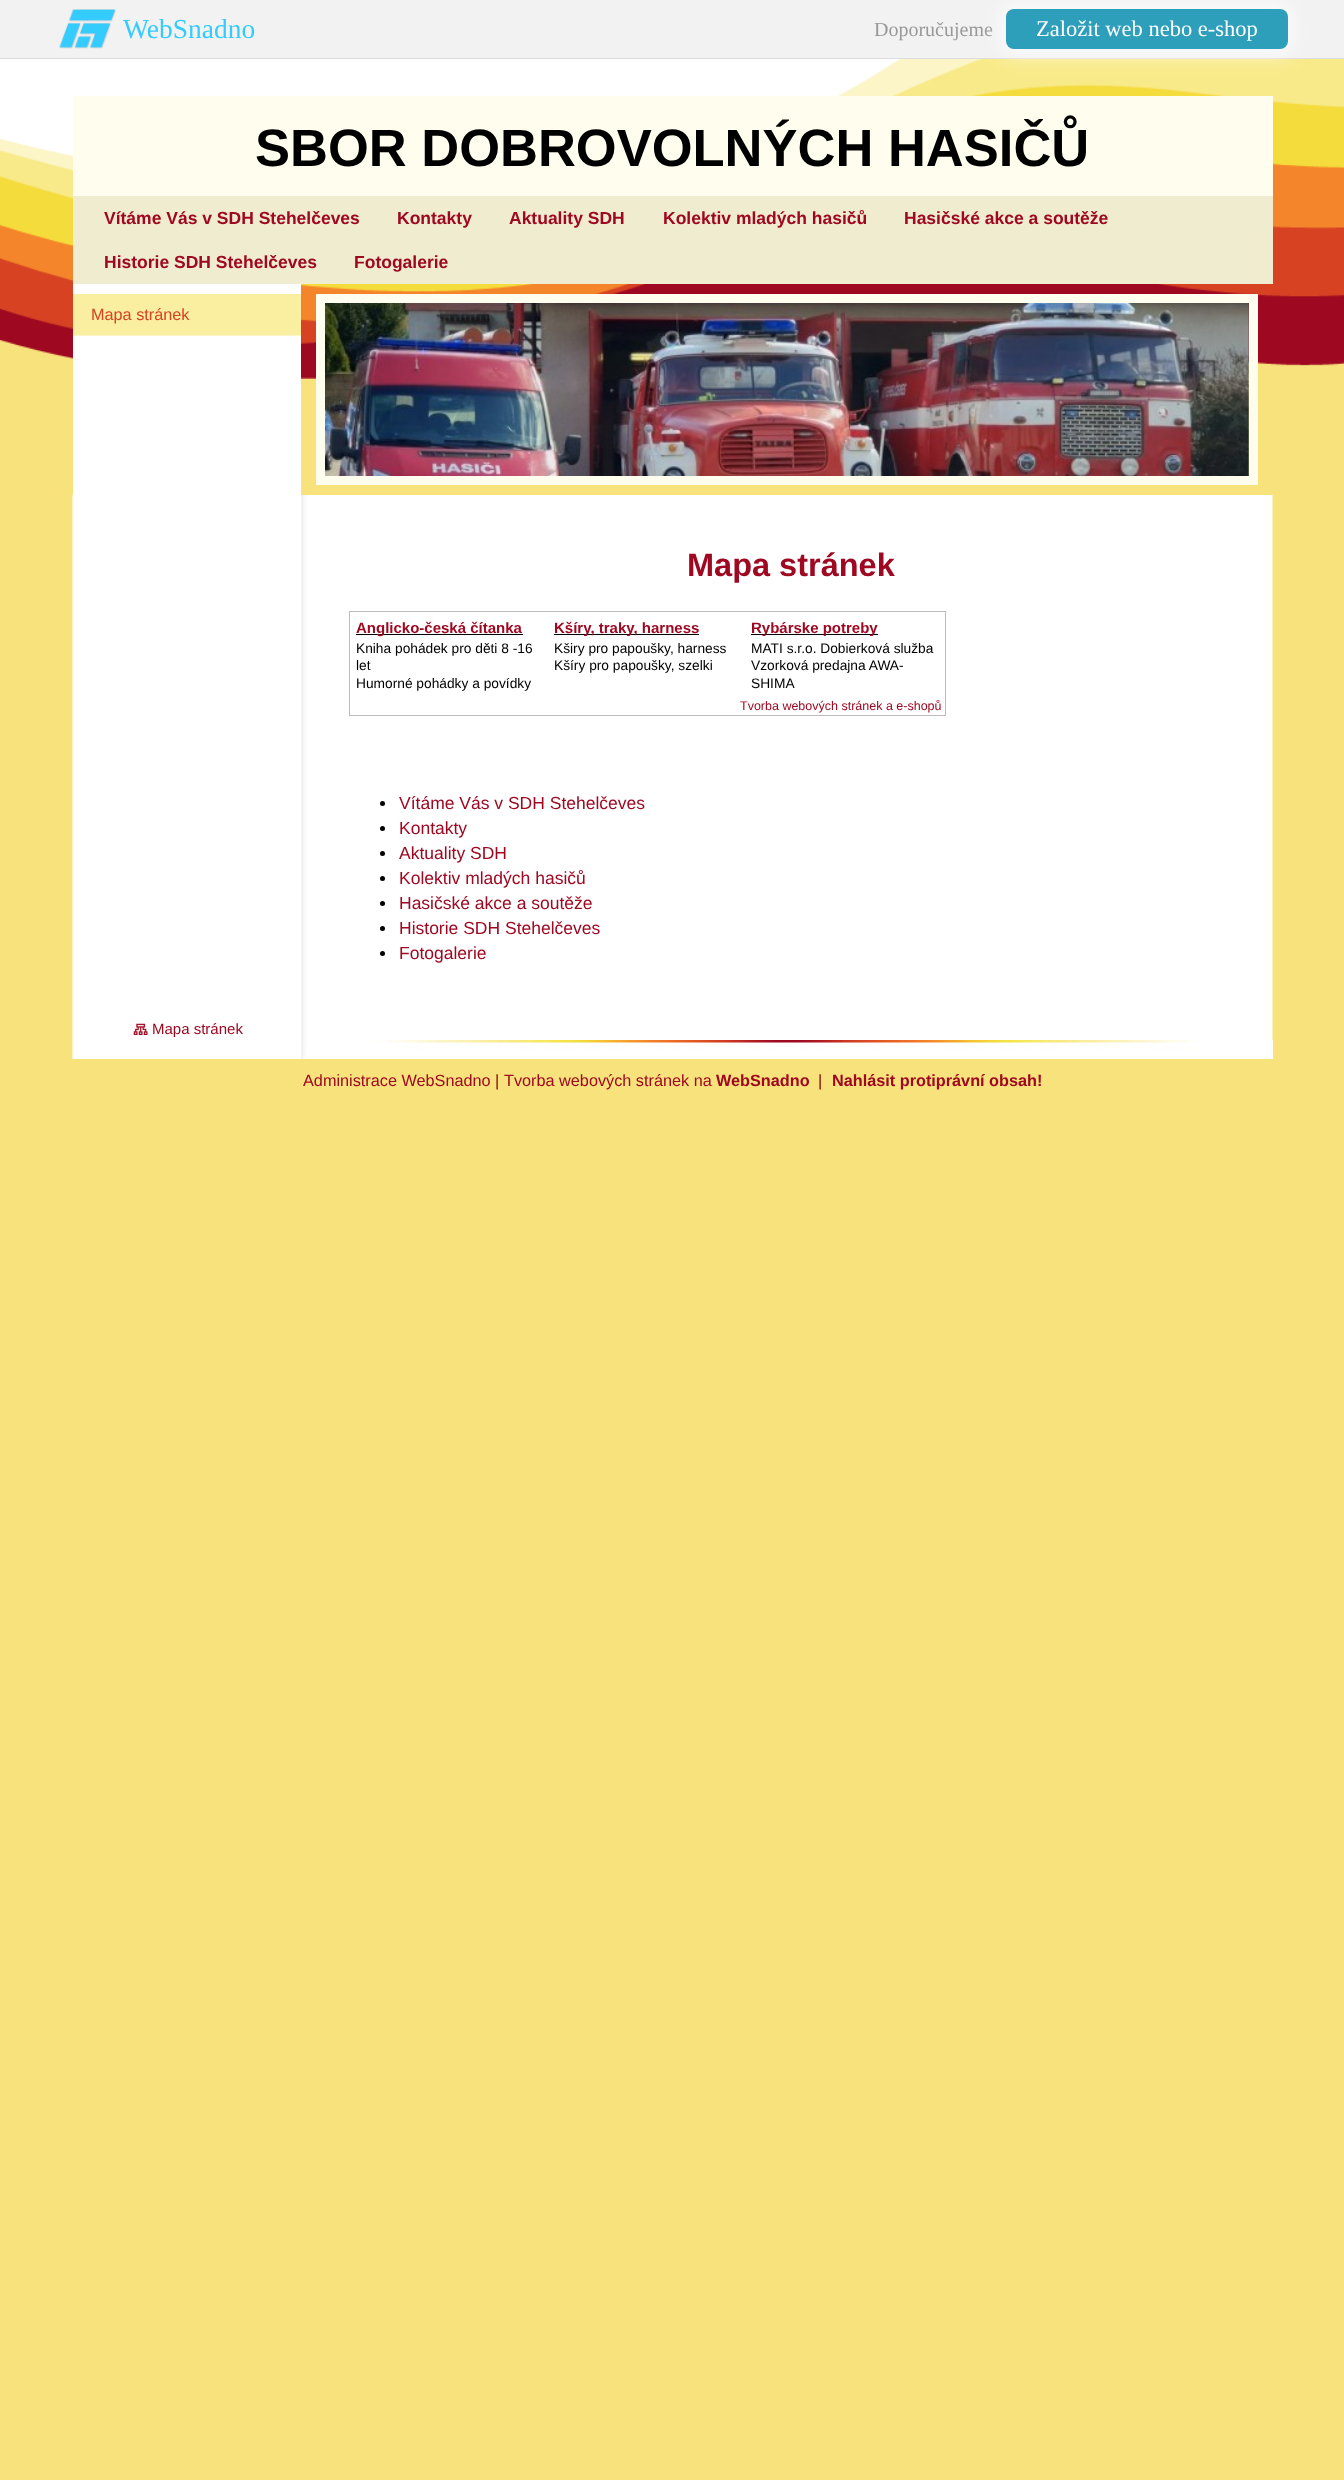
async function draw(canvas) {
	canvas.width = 1344;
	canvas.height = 2480;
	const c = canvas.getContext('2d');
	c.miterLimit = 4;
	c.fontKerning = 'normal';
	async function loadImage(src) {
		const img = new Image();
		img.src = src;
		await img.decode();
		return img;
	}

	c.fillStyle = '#f7e27b';
	c.fillRect(0, 0, 1344, 2480);
	c.drawImage(await loadImage('img1.png'), 0, 59, 1344, 320);
	c.fillStyle = '#f2f2f2';
	c.fillRect(0, 0, 1344, 58);
	c.fillStyle = '#ddd';
	c.fillRect(0, 58, 1344, 1);
	c.drawImage(await loadImage('img2.png'), 59, 9, 57, 40);
	c.font = '27.5px Liberation Serif';
	c.fillStyle = '#34cbff';
	c.fillText('WebSnadno', 123, 38);
	c.font = '20px Liberation Serif';
	c.fillStyle = '#999';
	c.fillText('Doporučujeme', 874, 36);
	c.fillStyle = '#ffffffbf';
	c.filter = 'blur(10px)';
	c.beginPath();
	c.roundRect(1001, 4, 292, 50, 13);
	c.fill();
	c.filter = 'none';
	c.fillStyle = '#2d9fbb';
	c.beginPath();
	c.roundRect(1006, 9, 282, 40, 8);
	c.fill();
	c.font = '22.5px Liberation Serif';
	c.fillStyle = '#fff';
	c.fillText('Založit web nebo e-shop', 1036, 36);
	c.fillStyle = '#fffded';
	c.fillRect(73, 96, 1200, 100);
	c.font = 'bold 52.5px Liberation Sans';
	c.fillStyle = '#000';
	c.fillText('SBOR DOBROVOLNÝCH HASIČŮ', 255, 166);
	c.fillStyle = '#efecd0';
	c.fillRect(73, 196, 1200, 88);
	c.font = 'bold 17.5px Liberation Sans';
	c.fillStyle = '#9e0821';
	for (const [text, x, y] of [
		['Vítáme Vás v SDH Stehelčeves', 104, 224],
		['Kontakty', 397, 224],
		['Aktuality SDH', 509, 224],
		['Kolektiv mladých hasičů', 663, 224],
		['Hasičské akce a soutěže', 904, 224],
		['Historie SDH Stehelčeves', 104, 268],
		['Fotogalerie', 354, 268],
	]) {
		c.fillText(text, x, y);
	}
	c.drawImage(await loadImage('img3.png'), 72, 495, 1201, 545);
	for (const [x, y, w, h, color] of [
		[73, 284, 228, 10, '#fff'],
		[73, 336, 228, 159, '#fff'],
		[73, 294, 228, 41, '#faeea1'],
		[73, 335, 228, 1, '#fcf5c8'],
	]) {
		c.fillStyle = color;
		c.fillRect(x, y, w, h);
	}
	c.font = '16.25px Liberation Sans';
	c.fillStyle = '#d64222';
	c.fillText('Mapa stránek', 91, 320);
	c.drawImage(await loadImage('img4.png'), 325, 303, 924, 173);
	c.strokeStyle = '#fffded';
	c.lineWidth = 9;
	c.strokeRect(320.5, 298.5, 933, 182);
	c.font = 'bold 32.5px Liberation Sans';
	c.fillStyle = '#9e0821';
	c.fillText('Mapa stránek', 687, 576);
	c.strokeStyle = '#bbb';
	c.lineWidth = 1;
	c.strokeRect(349.5, 611.5, 596, 104);
	c.fillStyle = '#000';
	c.fillRect(356, 634, 167, 1);
	c.font = 'bold 15px Liberation Sans';
	c.fillStyle = '#9e0821';
	c.fillText('Anglicko-česká čítanka', 356, 633);
	c.font = '13.75px Liberation Sans';
	c.fillStyle = '#000';
	for (const [text, x, y] of [
		['Kniha pohádek pro děti 8 -16', 356, 653],
		['let', 356, 670],
		['Humorné pohádky a povídky', 356, 688],
	]) {
		c.fillText(text, x, y);
	}
	c.fillRect(554, 634, 145, 1);
	c.font = 'bold 15px Liberation Sans';
	c.fillStyle = '#9e0821';
	c.fillText('Kšíry, traky, harness', 554, 633);
	c.font = '13.75px Liberation Sans';
	c.fillStyle = '#000';
	c.fillText('Kširy pro papoušky, harness', 554, 653);
	c.fillText('Kšíry pro papoušky, szelki', 554, 670);
	c.fillRect(751, 634, 127, 1);
	c.font = 'bold 15px Liberation Sans';
	c.fillStyle = '#9e0821';
	c.fillText('Rybárske potreby', 751, 633);
	c.font = '13.75px Liberation Sans';
	c.fillStyle = '#000';
	for (const [text, x, y] of [
		['MATI s.r.o. Dobierková služba', 751, 653],
		['Vzorková predajna AWA-', 751, 670],
		['SHIMA', 751, 688],
	]) {
		c.fillText(text, x, y);
	}
	c.font = '12.5px Liberation Sans';
	c.fillStyle = '#9e0821';
	c.fillText('Tvorba webových stránek a e-shopů', 740, 710);
	c.fillStyle = '#000';
	c.beginPath();
	c.arc(382.5, 803.5, 2.5, 0, 2 * Math.PI);
	c.fill();
	c.font = '17.5px Liberation Sans';
	c.fillStyle = '#9e0821';
	c.fillText('Vítáme Vás v SDH Stehelčeves', 399, 809);
	c.fillStyle = '#000';
	c.beginPath();
	c.arc(382.5, 828.5, 2.5, 0, 2 * Math.PI);
	c.fill();
	c.fillStyle = '#9e0821';
	c.fillText('Kontakty', 399, 834);
	c.fillStyle = '#000';
	c.beginPath();
	c.arc(382.5, 853.5, 2.5, 0, 2 * Math.PI);
	c.fill();
	c.fillStyle = '#9e0821';
	c.fillText('Aktuality SDH', 399, 859);
	c.fillStyle = '#000';
	c.beginPath();
	c.arc(382.5, 878.5, 2.5, 0, 2 * Math.PI);
	c.fill();
	c.fillStyle = '#9e0821';
	c.fillText('Kolektiv mladých hasičů', 399, 884);
	c.fillStyle = '#000';
	c.beginPath();
	c.arc(382.5, 903.5, 2.5, 0, 2 * Math.PI);
	c.fill();
	c.fillStyle = '#9e0821';
	c.fillText('Hasičské akce a soutěže', 399, 909);
	c.fillStyle = '#000';
	c.beginPath();
	c.arc(382.5, 928.5, 2.5, 0, 2 * Math.PI);
	c.fill();
	c.fillStyle = '#9e0821';
	c.fillText('Historie SDH Stehelčeves', 399, 934);
	c.fillStyle = '#000';
	c.beginPath();
	c.arc(382.5, 953.5, 2.5, 0, 2 * Math.PI);
	c.fill();
	c.fillStyle = '#9e0821';
	c.fillText('Fotogalerie', 399, 959);
	c.drawImage(await loadImage('img5.png'), 133, 1023, 15, 12);
	c.font = '15px Liberation Sans';
	c.fillText('Mapa stránek', 152, 1034);
	c.fillStyle = '#fff';
	c.fillRect(73, 1040, 1200, 19);
	c.drawImage(await loadImage('img6.png'), 72, 1040, 1130, 19);
	c.font = '16.25px Liberation Sans';
	c.fillStyle = '#9e0821';
	c.fillText('Administrace WebSnadno', 303, 1086);
	c.fillStyle = '#800000';
	c.fillText('|', 495, 1086);
	c.fillStyle = '#9e0821';
	c.fillText('Tvorba webových stránek na', 504, 1086);
	c.font = 'bold 16.25px Liberation Sans';
	c.fillText('WebSnadno', 716, 1086);
	c.font = '16.25px Liberation Sans';
	c.fillStyle = '#800000';
	c.fillText('|', 818, 1086);
	c.font = 'bold 16.25px Liberation Sans';
	c.fillStyle = '#9e0821';
	c.fillText('Nahlásit protiprávní obsah!', 832, 1086);
}

draw(document.querySelector('canvas'));
